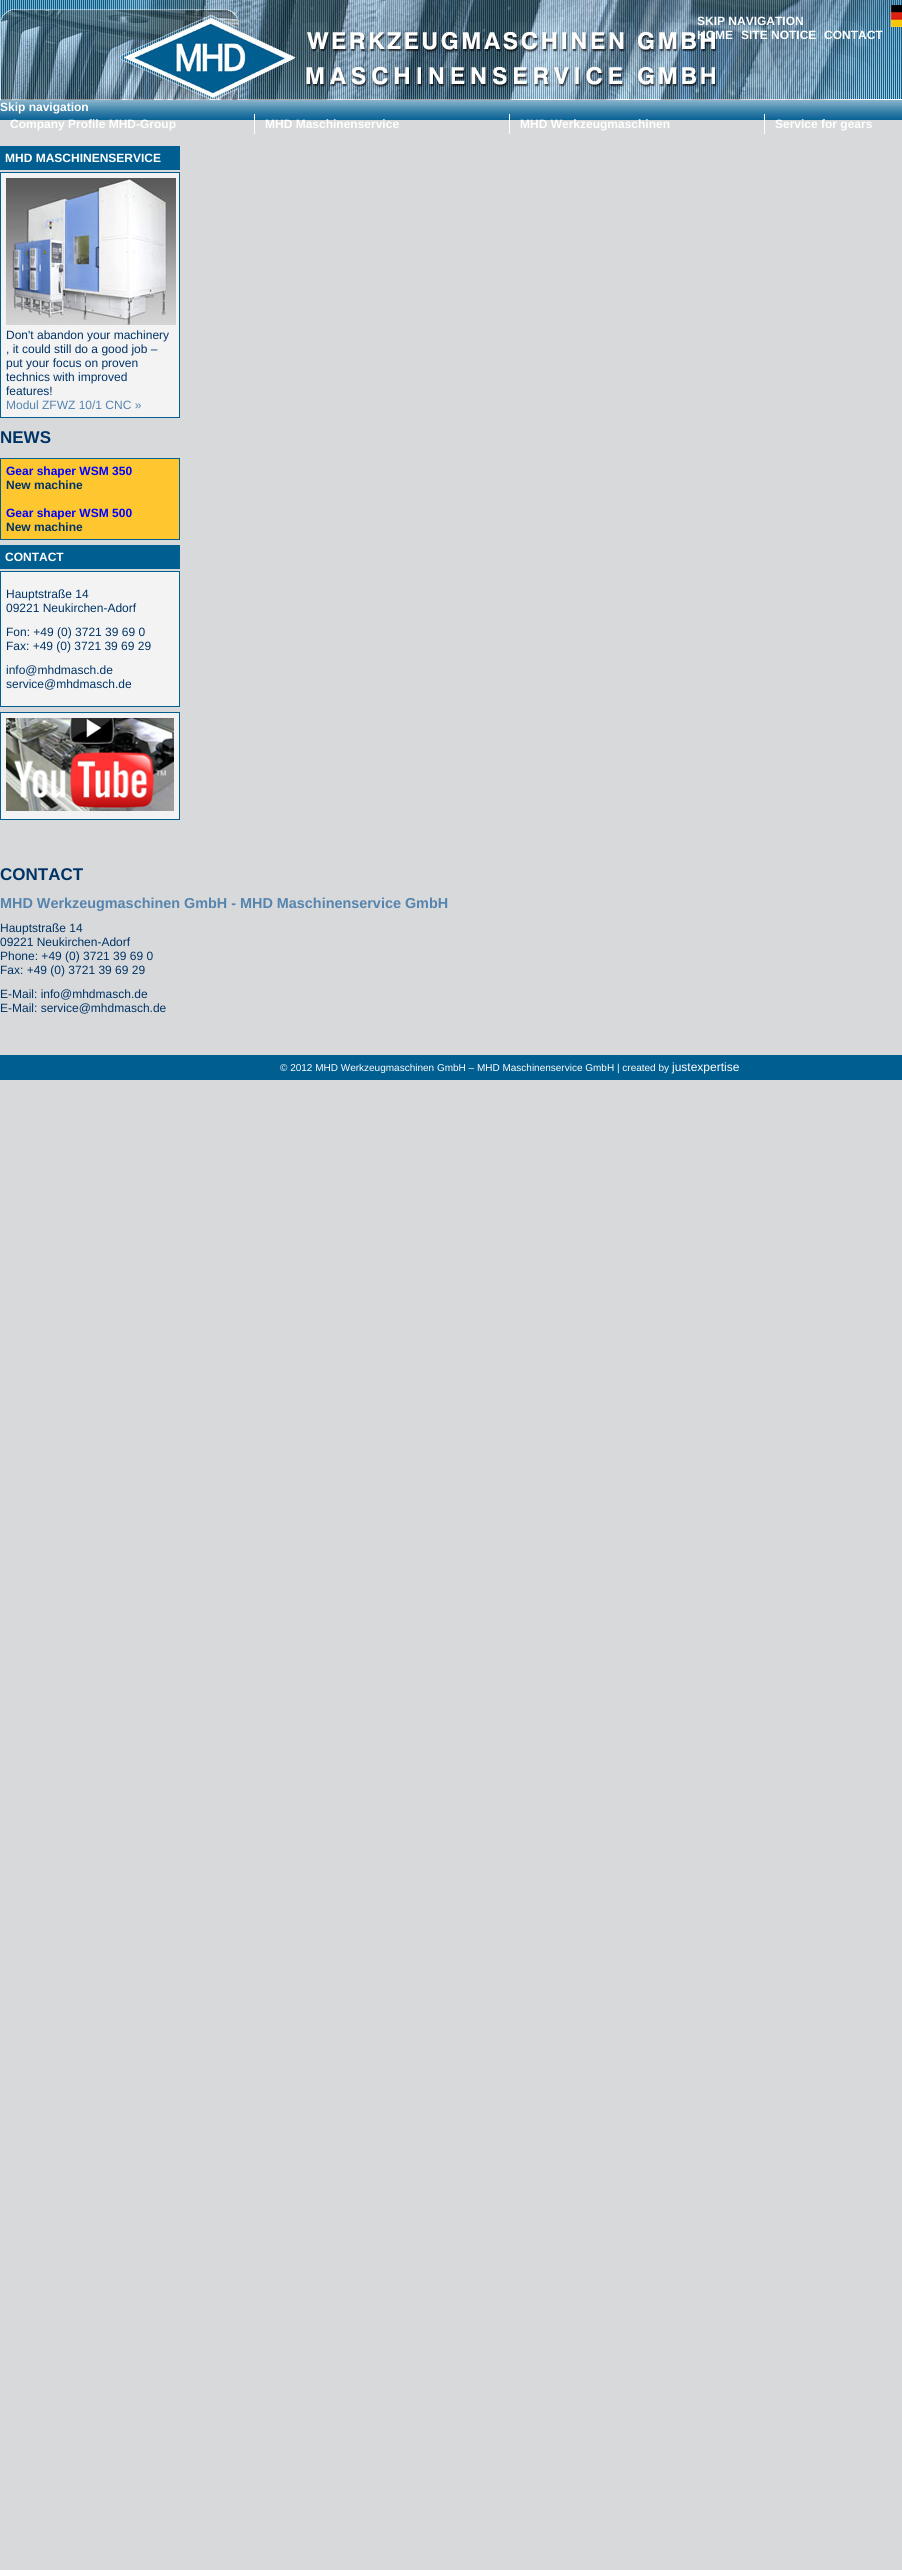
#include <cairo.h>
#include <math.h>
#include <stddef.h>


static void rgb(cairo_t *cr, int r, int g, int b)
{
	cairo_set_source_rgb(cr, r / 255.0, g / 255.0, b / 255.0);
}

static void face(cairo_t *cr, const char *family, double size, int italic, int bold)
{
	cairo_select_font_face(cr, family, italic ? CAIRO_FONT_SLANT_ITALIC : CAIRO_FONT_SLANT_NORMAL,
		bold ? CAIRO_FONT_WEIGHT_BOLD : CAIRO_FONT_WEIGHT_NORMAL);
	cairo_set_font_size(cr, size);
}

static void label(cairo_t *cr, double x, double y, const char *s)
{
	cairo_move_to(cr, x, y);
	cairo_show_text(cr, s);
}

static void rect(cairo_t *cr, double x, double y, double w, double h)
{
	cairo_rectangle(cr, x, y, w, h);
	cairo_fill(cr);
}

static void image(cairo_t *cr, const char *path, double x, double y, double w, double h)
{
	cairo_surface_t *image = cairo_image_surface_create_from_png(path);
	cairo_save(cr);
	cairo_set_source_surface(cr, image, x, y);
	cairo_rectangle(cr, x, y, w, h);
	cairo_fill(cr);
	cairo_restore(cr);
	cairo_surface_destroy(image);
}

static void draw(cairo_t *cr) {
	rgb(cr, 216, 217, 218);
	cairo_paint(cr);
	image(cr, "image0.png", 0, 0, 902, 100);
	face(cr, "Liberation Sans", 12, 0, 1);
	rgb(cr, 255, 255, 255);
	label(cr, 697, 25, "SKIP NAVIGATION");
	label(cr, 697, 39, "HOME");
	label(cr, 741, 39, "SITE NOTICE");
	label(cr, 824, 39, "CONTACT");
	image(cr, "image1.png", 891, 5, 11, 22);
	image(cr, "image2.png", 0, 100, 902, 20);
	label(cr, 0, 111, "Skip navigation");
	rect(cr, 254, 114, 1, 20);
	label(cr, 10, 128, "Company Profile MHD-Group");
	rect(cr, 509, 114, 1, 20);
	label(cr, 265, 128, "MHD Maschinenservice");
	rect(cr, 764, 114, 1, 20);
	label(cr, 520, 128, "MHD Werkzeugmaschinen");
	label(cr, 775, 128, "Service for gears");
	rgb(cr, 0, 94, 145);
	rect(cr, 0, 146, 180, 24);
	rgb(cr, 255, 255, 255);
	label(cr, 5, 162, "MHD MASCHINENSERVICE");
	rgb(cr, 243, 243, 243);
	cairo_rectangle(cr, 0.5, 172.5, 179, 245);
	cairo_fill_preserve(cr);
	rgb(cr, 0, 94, 145);
	cairo_set_line_width(cr, 1);
	cairo_stroke(cr);
	image(cr, "image3.png", 6, 178, 170, 147);
	face(cr, "Liberation Sans", 12, 0, 0);
	rgb(cr, 0, 51, 102);
	label(cr, 6, 339, "Don't abandon your machinery");
	label(cr, 6, 353, ", it could still do a good job –");
	label(cr, 6, 367, "put your focus on proven");
	label(cr, 6, 381, "technics with improved");
	label(cr, 6, 395, "features!");
	rgb(cr, 85, 132, 174);
	label(cr, 6, 409, "Modul ZFWZ 10/1 CNC »");
	face(cr, "Liberation Sans", 17, 0, 1);
	rgb(cr, 0, 51, 102);
	label(cr, 0, 443, "NEWS");
	rgb(cr, 255, 199, 47);
	cairo_rectangle(cr, 0.5, 458.5, 179, 81);
	cairo_fill_preserve(cr);
	rgb(cr, 0, 94, 145);
	cairo_stroke(cr);
	face(cr, "Liberation Sans", 12, 0, 1);
	rgb(cr, 0, 0, 255);
	label(cr, 6, 475, "Gear shaper WSM 350");
	rgb(cr, 0, 51, 102);
	label(cr, 6, 489, "New machine");
	rgb(cr, 0, 0, 255);
	label(cr, 6, 517, "Gear shaper WSM 500");
	rgb(cr, 0, 51, 102);
	label(cr, 6, 531, "New machine");
	rgb(cr, 0, 94, 145);
	rect(cr, 0, 545, 180, 24);
	rgb(cr, 255, 255, 255);
	label(cr, 5, 561, "CONTACT");
	rgb(cr, 243, 243, 243);
	cairo_rectangle(cr, 0.5, 571.5, 179, 135);
	cairo_fill_preserve(cr);
	rgb(cr, 0, 94, 145);
	cairo_stroke(cr);
	face(cr, "Liberation Sans", 12, 0, 0);
	rgb(cr, 0, 51, 102);
	label(cr, 6, 598, "Hauptstraße 14");
	label(cr, 6, 612, "09221 Neukirchen-Adorf");
	label(cr, 6, 636, "Fon: +49 (0) 3721 39 69 0");
	label(cr, 6, 650, "Fax: +49 (0) 3721 39 69 29");
	label(cr, 6, 674, "info@mhdmasch.de");
	label(cr, 6, 688, "service@mhdmasch.de");
	rgb(cr, 243, 243, 243);
	cairo_rectangle(cr, 0.5, 712.5, 179, 107);
	cairo_fill_preserve(cr);
	rgb(cr, 0, 94, 145);
	cairo_stroke(cr);
	image(cr, "image4.png", 6, 718, 168, 93);
	face(cr, "Liberation Sans", 17, 0, 1);
	rgb(cr, 0, 51, 102);
	label(cr, 0, 880, "CONTACT");
	face(cr, "Liberation Sans", 14.4, 0, 1);
	rgb(cr, 85, 132, 174);
	label(cr, 0, 908, "MHD Werkzeugmaschinen GmbH - MHD Maschinenservice GmbH");
	face(cr, "Liberation Sans", 12, 0, 0);
	rgb(cr, 0, 51, 102);
	label(cr, 0, 932, "Hauptstraße 14");
	label(cr, 0, 946, "09221 Neukirchen-Adorf");
	label(cr, 0, 960, "Phone: +49 (0) 3721 39 69 0");
	label(cr, 0, 974, "Fax: +49 (0) 3721 39 69 29");
	label(cr, 0, 998, "E-Mail: info@mhdmasch.de");
	label(cr, 0, 1012, "E-Mail: service@mhdmasch.de");
	rgb(cr, 0, 94, 145);
	rect(cr, 0, 1055, 902, 25);
	face(cr, "Liberation Sans", 10, 0, 0);
	rgb(cr, 255, 255, 255);
	label(cr, 280, 1071, "© 2012 MHD Werkzeugmaschinen GmbH – MHD Maschinenservice GmbH | created by");
	face(cr, "Liberation Sans", 12, 0, 0);
	label(cr, 672, 1071, "justexpertise");
}

int main(void) {
	cairo_surface_t *surface = cairo_image_surface_create(CAIRO_FORMAT_RGB24, 902, 2570);
	cairo_t *cr = cairo_create(surface);
	cairo_font_options_t *options = cairo_font_options_create();
	cairo_font_options_set_hint_metrics(options, CAIRO_HINT_METRICS_OFF);
	cairo_font_options_set_hint_style(options, CAIRO_HINT_STYLE_NONE);
	cairo_set_font_options(cr, options);
	cairo_set_miter_limit(cr, 4);
	draw(cr);
	cairo_surface_write_to_png(surface, "render.png");
	cairo_font_options_destroy(options);
	cairo_destroy(cr);
	cairo_surface_destroy(surface);
	return 0;
}
